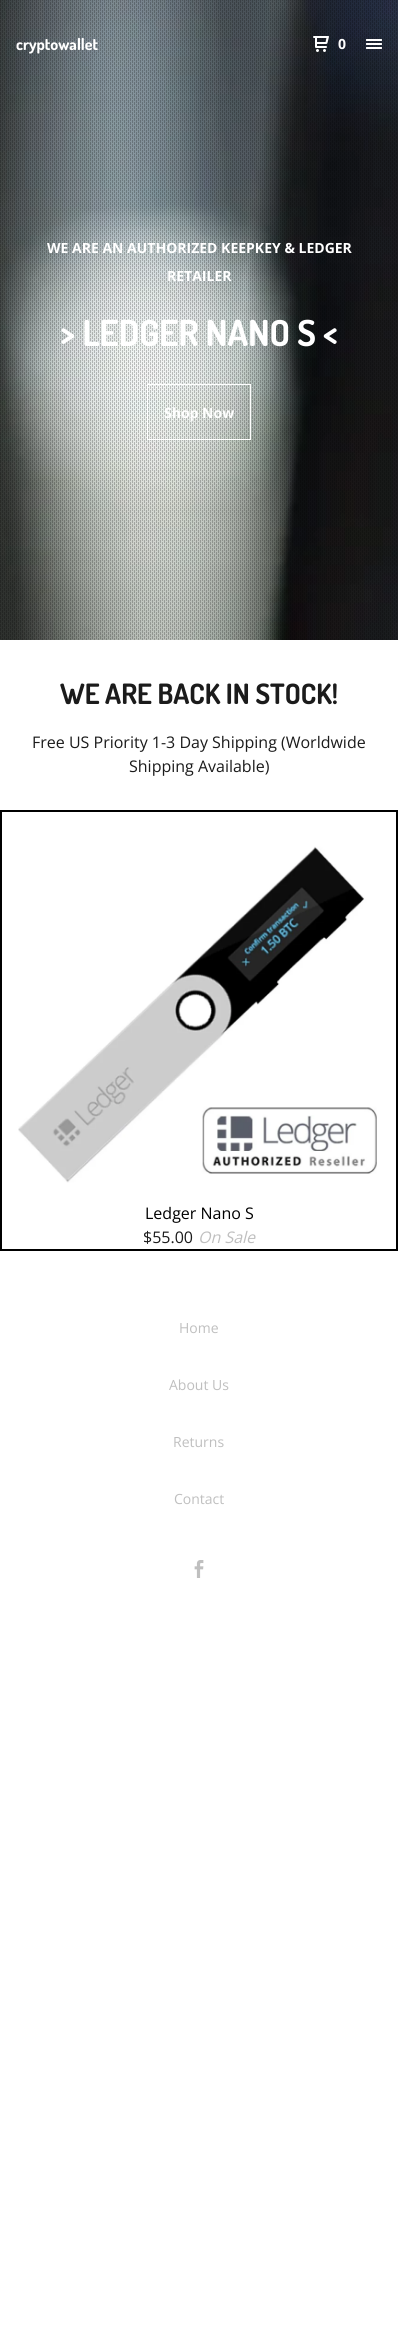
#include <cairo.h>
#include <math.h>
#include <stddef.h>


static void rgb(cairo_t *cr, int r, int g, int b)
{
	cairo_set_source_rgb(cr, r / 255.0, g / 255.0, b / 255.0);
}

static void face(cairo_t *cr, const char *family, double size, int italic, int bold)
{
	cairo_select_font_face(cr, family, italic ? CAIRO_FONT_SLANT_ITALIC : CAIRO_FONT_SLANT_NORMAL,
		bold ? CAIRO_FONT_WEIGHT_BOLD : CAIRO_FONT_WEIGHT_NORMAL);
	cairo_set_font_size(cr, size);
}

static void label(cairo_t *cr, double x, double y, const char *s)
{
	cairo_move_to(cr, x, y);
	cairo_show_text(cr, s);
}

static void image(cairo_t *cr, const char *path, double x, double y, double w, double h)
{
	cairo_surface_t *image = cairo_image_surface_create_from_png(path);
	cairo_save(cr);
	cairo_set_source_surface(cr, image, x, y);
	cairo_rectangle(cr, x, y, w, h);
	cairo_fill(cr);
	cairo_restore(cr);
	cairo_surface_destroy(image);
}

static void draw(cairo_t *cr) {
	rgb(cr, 255, 255, 255);
	cairo_paint(cr);
	image(cr, "image2.png", 0, 0, 398, 640);
	image(cr, "image3.png", 0, 0, 397, 640);
	face(cr, "Dosis", 16, 0, 1);
	rgb(cr, 255, 255, 255);
	label(cr, 16, 50, "cryptowallet");
	image(cr, "image0.png", 313, 36, 16, 16);
	face(cr, "Open Sans", 14, 0, 1);
	label(cr, 338, 49, "0");
	image(cr, "image1.png", 366, 39, 16, 10);
	label(cr, 47, 253, "WE ARE AN AUTHORIZED KEEPKEY & LEDGER");
	label(cr, 167, 281, "RETAILER");
	face(cr, "Dosis", 35.75, 0, 1);
	label(cr, 60, 346, "> LEDGER NANO S <");
	cairo_rectangle(cr, 147.5, 384.5, 103, 55);
	cairo_set_line_width(cr, 1);
	cairo_stroke(cr);
	face(cr, "Open Sans", 14, 0, 1);
	label(cr, 164, 418, "Shop Now");
	face(cr, "Dosis", 28, 0, 1);
	rgb(cr, 27, 27, 27);
	label(cr, 60, 704, "WE ARE BACK IN STOCK!");
	face(cr, "Open Sans", 16, 0, 0);
	label(cr, 32, 748, "Free US Priority 1-3 Day Shipping (Worldwide");
	label(cr, 129, 772, "Shipping Available)");
	cairo_rectangle(cr, 1, 811, 396, 439);
	rgb(cr, 0, 0, 0);
	cairo_set_line_width(cr, 2);
	cairo_stroke(cr);
	image(cr, "image4.png", 18, 846, 359, 337);
	label(cr, 145, 1219, "Ledger Nano S");
	rgb(cr, 27, 27, 27);
	label(cr, 143, 1243, "$55.00");
	face(cr, "Open Sans", 16, 1, 0);
	rgb(cr, 191, 191, 191);
	label(cr, 198, 1243, "On Sale");
	face(cr, "Open Sans", 14, 0, 0);
	label(cr, 179, 1333, "Home");
	label(cr, 169, 1390, "About Us");
	label(cr, 173, 1447, "Returns");
	label(cr, 174, 1504, "Contact");
	image(cr, "image5.png", 194, 1560, 10, 18);
}

int main(void) {
	cairo_surface_t *surface = cairo_image_surface_create(CAIRO_FORMAT_RGB24, 398, 2347);
	cairo_t *cr = cairo_create(surface);
	cairo_font_options_t *options = cairo_font_options_create();
	cairo_font_options_set_hint_metrics(options, CAIRO_HINT_METRICS_OFF);
	cairo_font_options_set_hint_style(options, CAIRO_HINT_STYLE_NONE);
	cairo_set_font_options(cr, options);
	cairo_set_miter_limit(cr, 4);
	draw(cr);
	cairo_surface_write_to_png(surface, "render.png");
	cairo_font_options_destroy(options);
	cairo_destroy(cr);
	cairo_surface_destroy(surface);
	return 0;
}
